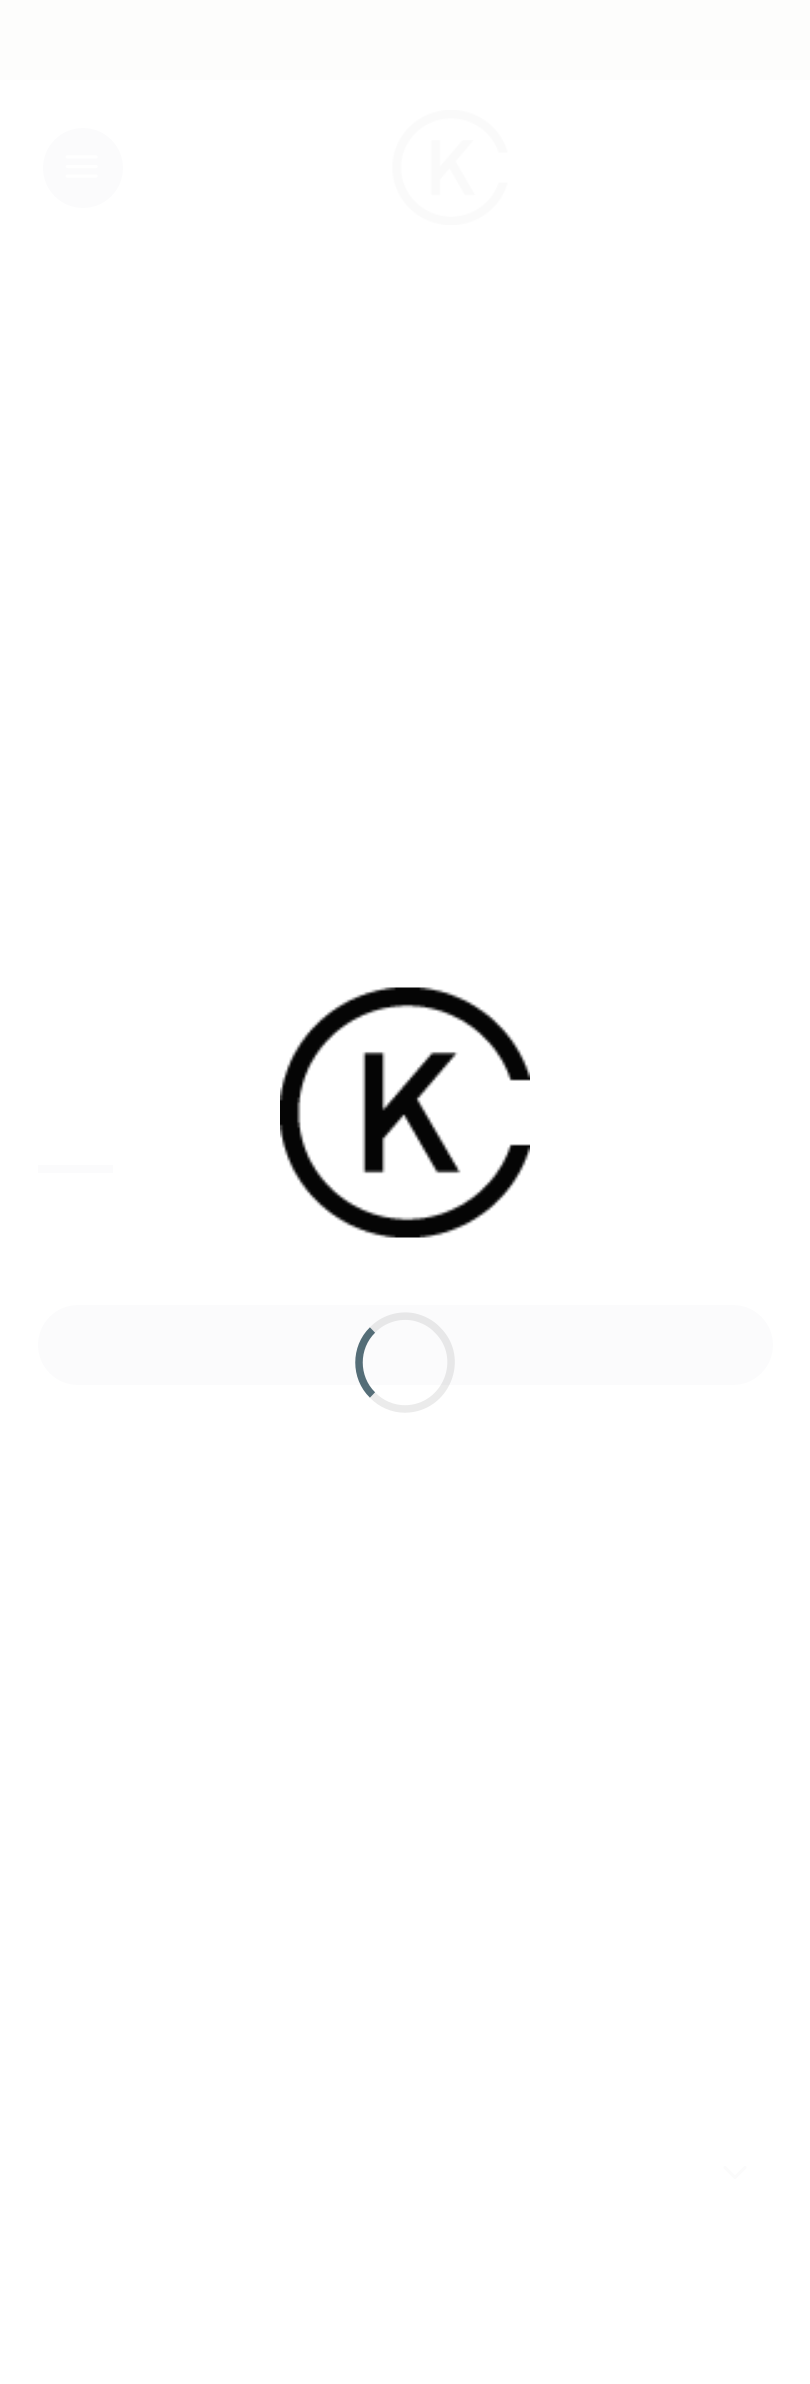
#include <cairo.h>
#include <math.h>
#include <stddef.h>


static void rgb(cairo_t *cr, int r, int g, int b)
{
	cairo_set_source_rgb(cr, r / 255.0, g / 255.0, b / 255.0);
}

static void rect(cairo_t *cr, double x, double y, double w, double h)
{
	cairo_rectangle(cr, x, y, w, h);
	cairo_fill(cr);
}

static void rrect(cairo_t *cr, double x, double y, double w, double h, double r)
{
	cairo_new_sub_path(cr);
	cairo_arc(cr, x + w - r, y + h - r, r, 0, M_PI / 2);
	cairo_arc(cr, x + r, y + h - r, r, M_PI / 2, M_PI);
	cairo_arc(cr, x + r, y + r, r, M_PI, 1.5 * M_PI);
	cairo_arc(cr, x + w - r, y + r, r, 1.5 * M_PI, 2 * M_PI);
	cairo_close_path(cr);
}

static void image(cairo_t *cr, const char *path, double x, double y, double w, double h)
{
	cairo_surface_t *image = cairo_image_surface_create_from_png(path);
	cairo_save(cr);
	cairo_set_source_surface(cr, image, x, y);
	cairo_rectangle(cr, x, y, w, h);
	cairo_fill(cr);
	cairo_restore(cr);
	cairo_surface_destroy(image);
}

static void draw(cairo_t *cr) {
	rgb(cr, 255, 255, 255);
	cairo_paint(cr);
	rgb(cr, 253, 253, 252);
	rect(cr, 0, 0, 810, 80);
	rgb(cr, 251, 251, 252);
	cairo_arc(cr, 83, 168, 40, 0, 2 * M_PI);
	cairo_fill(cr);
	image(cr, "image0.png", 65, 155, 33, 23);
	image(cr, "image1.png", 392, 110, 116, 115);
	image(cr, "image2.png", 280, 987, 250, 251);
	rrect(cr, 38, 1305, 735, 80, 40);
	cairo_fill(cr);
	cairo_new_path(cr);
	cairo_move_to(cr, 372.5, 1330);
	cairo_curve_to(cr, 383, 1319, 399, 1314, 414, 1317);
	cairo_curve_to(cr, 423, 1319, 431.5, 1323.5, 437.5, 1330);
	cairo_curve_to(cr, 466.5, 1358.5, 446, 1408.5, 405, 1409);
	cairo_curve_to(cr, 393, 1409, 381, 1404, 372.5, 1395);
	cairo_set_source_rgba(cr, 0, 0, 0, 0.08);
	cairo_set_line_width(cr, 7.5);
	cairo_stroke(cr);
	cairo_new_path(cr);
	cairo_move_to(cr, 372.5, 1395);
	cairo_curve_to(cr, 354.5, 1377.5, 354.5, 1347.5, 372.5, 1330);
	cairo_set_source_rgba(cr, 0.149, 0.275, 0.325, 0.78);
	cairo_stroke(cr);
	rgb(cr, 251, 251, 252);
	rect(cr, 38, 1165, 75, 8);
	cairo_new_path(cr);
	cairo_move_to(cr, 725, 2167.5);
	cairo_line_to(cr, 735, 2177.5);
	cairo_line_to(cr, 745, 2167.5);
	rgb(cr, 251, 251, 251);
	cairo_set_line_width(cr, 3.3);
	cairo_set_line_cap(cr, CAIRO_LINE_CAP_ROUND);
	cairo_set_line_join(cr, CAIRO_LINE_JOIN_ROUND);
	cairo_stroke(cr);
}

int main(void) {
	cairo_surface_t *surface = cairo_image_surface_create(CAIRO_FORMAT_RGB24, 810, 2384);
	cairo_t *cr = cairo_create(surface);
	cairo_font_options_t *options = cairo_font_options_create();
	cairo_font_options_set_hint_metrics(options, CAIRO_HINT_METRICS_OFF);
	cairo_font_options_set_hint_style(options, CAIRO_HINT_STYLE_NONE);
	cairo_set_font_options(cr, options);
	cairo_set_miter_limit(cr, 4);
	draw(cr);
	cairo_surface_write_to_png(surface, "render.png");
	cairo_font_options_destroy(options);
	cairo_destroy(cr);
	cairo_surface_destroy(surface);
	return 0;
}
